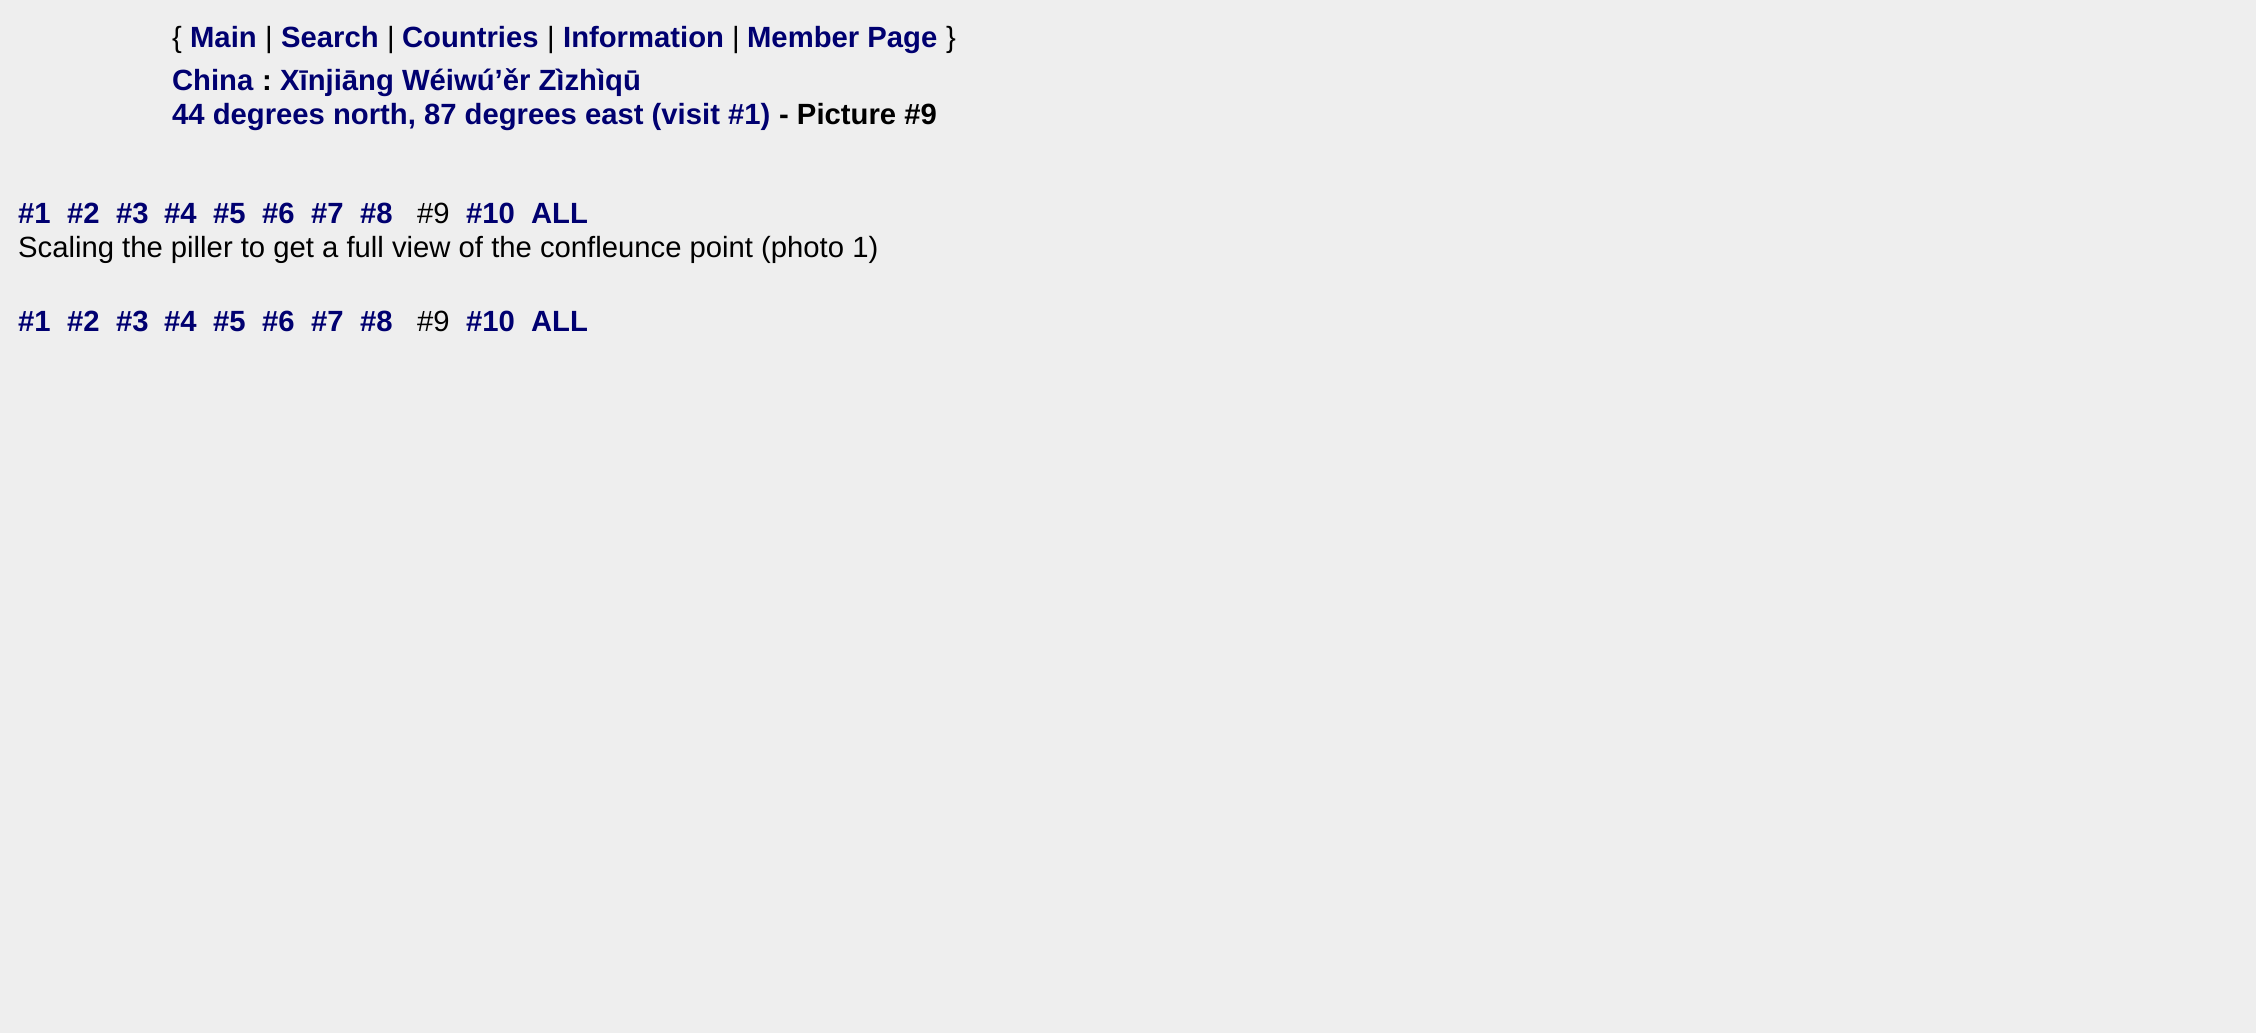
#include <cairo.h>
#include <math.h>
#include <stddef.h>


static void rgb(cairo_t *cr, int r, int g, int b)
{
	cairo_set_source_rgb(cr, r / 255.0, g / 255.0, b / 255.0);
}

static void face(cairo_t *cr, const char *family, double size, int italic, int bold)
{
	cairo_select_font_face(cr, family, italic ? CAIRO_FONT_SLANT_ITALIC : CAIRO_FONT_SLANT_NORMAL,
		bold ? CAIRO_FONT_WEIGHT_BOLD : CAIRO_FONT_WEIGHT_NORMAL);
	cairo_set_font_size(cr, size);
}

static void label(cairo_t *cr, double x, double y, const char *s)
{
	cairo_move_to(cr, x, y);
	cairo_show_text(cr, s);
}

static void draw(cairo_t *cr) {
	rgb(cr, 238, 238, 238);
	cairo_paint(cr);
	face(cr, "Liberation Sans", 29.25, 0, 0);
	rgb(cr, 0, 0, 0);
	label(cr, 172, 47, "{");
	face(cr, "Liberation Sans", 29.25, 0, 1);
	rgb(cr, 0, 0, 112);
	label(cr, 190, 47, "Main");
	face(cr, "Liberation Sans", 29.25, 0, 0);
	rgb(cr, 0, 0, 0);
	label(cr, 265, 47, "|");
	face(cr, "Liberation Sans", 29.25, 0, 1);
	rgb(cr, 0, 0, 112);
	label(cr, 281, 47, "Search");
	face(cr, "Liberation Sans", 29.25, 0, 0);
	rgb(cr, 0, 0, 0);
	label(cr, 387, 47, "|");
	face(cr, "Liberation Sans", 29.25, 0, 1);
	rgb(cr, 0, 0, 112);
	label(cr, 402, 47, "Countries");
	face(cr, "Liberation Sans", 29.25, 0, 0);
	rgb(cr, 0, 0, 0);
	label(cr, 547, 47, "|");
	face(cr, "Liberation Sans", 29.25, 0, 1);
	rgb(cr, 0, 0, 112);
	label(cr, 563, 47, "Information");
	face(cr, "Liberation Sans", 29.25, 0, 0);
	rgb(cr, 0, 0, 0);
	label(cr, 732, 47, "|");
	face(cr, "Liberation Sans", 29.25, 0, 1);
	rgb(cr, 0, 0, 112);
	label(cr, 747, 47, "Member Page");
	face(cr, "Liberation Sans", 29.25, 0, 0);
	rgb(cr, 0, 0, 0);
	label(cr, 946, 47, "}");
	face(cr, "Liberation Sans", 29.25, 0, 1);
	rgb(cr, 0, 0, 112);
	label(cr, 172, 90, "China");
	rgb(cr, 0, 0, 0);
	label(cr, 262, 90, ":");
	rgb(cr, 0, 0, 112);
	label(cr, 280, 90, "Xīnjiāng Wéiwú’ěr Zìzhìqū");
	label(cr, 172, 124, "44 degrees north, 87 degrees east (visit #1)");
	rgb(cr, 0, 0, 0);
	label(cr, 779, 124, "- Picture #9");
	rgb(cr, 0, 0, 112);
	label(cr, 18, 223, "#1");
	label(cr, 67, 223, "#2");
	label(cr, 116, 223, "#3");
	label(cr, 164, 223, "#4");
	label(cr, 213, 223, "#5");
	label(cr, 262, 223, "#6");
	label(cr, 311, 223, "#7");
	label(cr, 360, 223, "#8");
	face(cr, "Liberation Sans", 29.25, 0, 0);
	rgb(cr, 0, 0, 0);
	label(cr, 417, 223, "#9");
	face(cr, "Liberation Sans", 29.25, 0, 1);
	rgb(cr, 0, 0, 112);
	label(cr, 466, 223, "#10");
	label(cr, 531, 223, "ALL");
	face(cr, "Liberation Sans", 29.25, 0, 0);
	rgb(cr, 0, 0, 0);
	label(cr, 18, 257, "Scaling the piller to get a full view of the confleunce point (photo 1)");
	face(cr, "Liberation Sans", 29.25, 0, 1);
	rgb(cr, 0, 0, 112);
	label(cr, 18, 331, "#1");
	label(cr, 67, 331, "#2");
	label(cr, 116, 331, "#3");
	label(cr, 164, 331, "#4");
	label(cr, 213, 331, "#5");
	label(cr, 262, 331, "#6");
	label(cr, 311, 331, "#7");
	label(cr, 360, 331, "#8");
	face(cr, "Liberation Sans", 29.25, 0, 0);
	rgb(cr, 0, 0, 0);
	label(cr, 417, 331, "#9");
	face(cr, "Liberation Sans", 29.25, 0, 1);
	rgb(cr, 0, 0, 112);
	label(cr, 466, 331, "#10");
	label(cr, 531, 331, "ALL");
}

int main(void) {
	cairo_surface_t *surface = cairo_image_surface_create(CAIRO_FORMAT_RGB24, 2256, 1033);
	cairo_t *cr = cairo_create(surface);
	cairo_font_options_t *options = cairo_font_options_create();
	cairo_font_options_set_hint_metrics(options, CAIRO_HINT_METRICS_OFF);
	cairo_font_options_set_hint_style(options, CAIRO_HINT_STYLE_NONE);
	cairo_set_font_options(cr, options);
	cairo_set_miter_limit(cr, 4);
	draw(cr);
	cairo_surface_write_to_png(surface, "render.png");
	cairo_font_options_destroy(options);
	cairo_destroy(cr);
	cairo_surface_destroy(surface);
	return 0;
}
